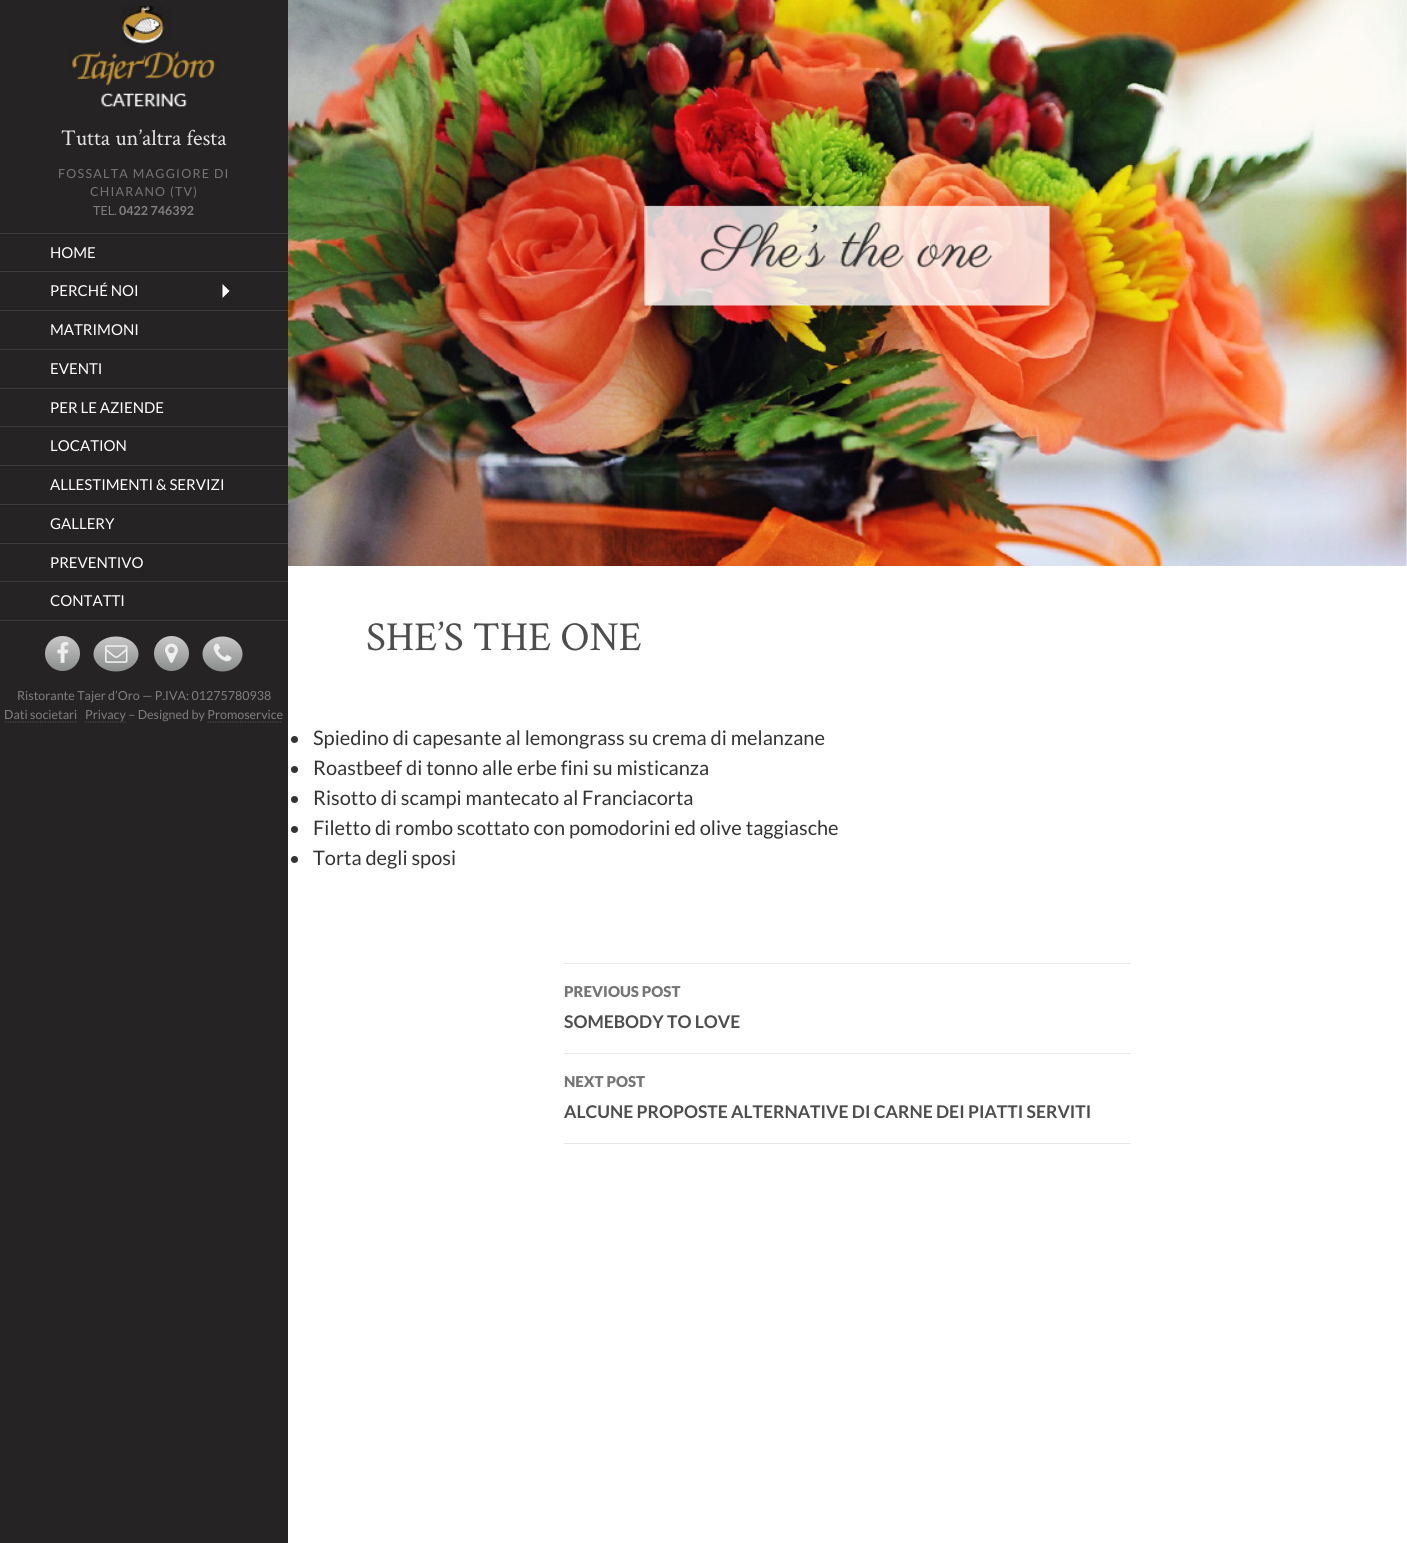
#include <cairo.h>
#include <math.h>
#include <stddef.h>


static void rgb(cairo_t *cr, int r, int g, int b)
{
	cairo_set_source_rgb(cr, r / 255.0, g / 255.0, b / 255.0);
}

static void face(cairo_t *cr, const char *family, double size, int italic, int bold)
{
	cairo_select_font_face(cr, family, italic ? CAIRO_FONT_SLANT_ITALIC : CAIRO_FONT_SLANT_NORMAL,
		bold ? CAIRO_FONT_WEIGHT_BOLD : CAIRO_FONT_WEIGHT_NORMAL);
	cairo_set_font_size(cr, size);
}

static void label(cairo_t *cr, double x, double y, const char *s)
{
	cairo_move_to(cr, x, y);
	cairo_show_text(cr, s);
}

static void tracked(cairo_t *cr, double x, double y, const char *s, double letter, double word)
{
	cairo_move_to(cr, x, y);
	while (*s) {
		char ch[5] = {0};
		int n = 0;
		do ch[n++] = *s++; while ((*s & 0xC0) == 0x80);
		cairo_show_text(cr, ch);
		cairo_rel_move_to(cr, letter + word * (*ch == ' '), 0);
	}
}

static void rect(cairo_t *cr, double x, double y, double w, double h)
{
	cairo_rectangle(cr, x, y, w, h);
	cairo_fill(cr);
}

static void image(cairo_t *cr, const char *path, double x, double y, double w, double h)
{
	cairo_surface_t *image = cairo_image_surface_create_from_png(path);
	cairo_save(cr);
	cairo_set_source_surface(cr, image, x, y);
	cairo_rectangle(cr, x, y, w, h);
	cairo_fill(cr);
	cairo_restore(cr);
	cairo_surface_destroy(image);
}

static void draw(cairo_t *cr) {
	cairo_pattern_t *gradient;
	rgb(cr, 255, 255, 255);
	cairo_paint(cr);
	image(cr, "image0.png", 0, 0, 288, 107);
	rgb(cr, 37, 35, 36);
	rect(cr, 0, 107, 288, 1436);
	face(cr, "Crimson Text", 22.5, 0, 0);
	rgb(cr, 227, 227, 227);
	label(cr, 61, 145, "Tutta un’altra festa");
	face(cr, "Lato", 12.5, 0, 0);
	rgb(cr, 118, 118, 118);
	tracked(cr, 58, 178, "FOSSALTA MAGGIORE DI", 1.25, 0);
	tracked(cr, 90, 196, "CHIARANO (TV)", 1.25, 0);
	rgb(cr, 128, 128, 128);
	label(cr, 93, 215, "TEL.");
	face(cr, "Lato", 12.5, 0, 1);
	label(cr, 119, 215, "0422 746392");
	rgb(cr, 62, 58, 60);
	rect(cr, 0, 233, 288, 1);
	rect(cr, 0, 271, 288, 1);
	face(cr, "Lato", 15, 0, 0);
	rgb(cr, 255, 255, 255);
	label(cr, 50, 258, "HOME");
	rgb(cr, 62, 58, 60);
	rect(cr, 0, 310, 288, 1);
	rgb(cr, 255, 255, 255);
	label(cr, 50, 296, "PERCHÉ NOI");
	cairo_new_path(cr);
	cairo_move_to(cr, 222.5, 298);
	cairo_line_to(cr, 229.5, 291);
	cairo_line_to(cr, 222.5, 284);
	cairo_close_path(cr);
	cairo_fill(cr);
	rgb(cr, 62, 58, 60);
	rect(cr, 0, 349, 288, 1);
	rgb(cr, 255, 255, 255);
	label(cr, 50, 335, "MATRIMONI");
	rgb(cr, 62, 58, 60);
	rect(cr, 0, 388, 288, 1);
	rgb(cr, 255, 255, 255);
	label(cr, 50, 374, "EVENTI");
	rgb(cr, 62, 58, 60);
	rect(cr, 0, 426, 288, 1);
	rgb(cr, 255, 255, 255);
	label(cr, 50, 413, "PER LE AZIENDE");
	rgb(cr, 62, 58, 60);
	rect(cr, 0, 465, 288, 1);
	rgb(cr, 255, 255, 255);
	label(cr, 50, 451, "LOCATION");
	rgb(cr, 62, 58, 60);
	rect(cr, 0, 504, 288, 1);
	rgb(cr, 255, 255, 255);
	label(cr, 50, 490, "ALLESTIMENTI & SERVIZI");
	rgb(cr, 62, 58, 60);
	rect(cr, 0, 543, 288, 1);
	rgb(cr, 255, 255, 255);
	label(cr, 50, 529, "GALLERY");
	rgb(cr, 62, 58, 60);
	rect(cr, 0, 581, 288, 1);
	rgb(cr, 255, 255, 255);
	label(cr, 50, 568, "PREVENTIVO");
	rgb(cr, 62, 58, 60);
	rect(cr, 0, 620, 288, 1);
	rgb(cr, 255, 255, 255);
	label(cr, 50, 606, "CONTATTI");
	gradient = cairo_pattern_create_linear(63, 636, 63, 671);
	cairo_pattern_add_color_stop_rgba(gradient, 0, 0.788, 0.788, 0.788, 1);
	cairo_pattern_add_color_stop_rgba(gradient, 1, 0.545, 0.549, 0.549, 1);
	cairo_set_source(cr, gradient);
	cairo_pattern_destroy(gradient);
	cairo_new_path(cr);
	cairo_arc(cr, 62.5, 653.5, 17.5, 0, 2 * M_PI);
	cairo_fill(cr);
	image(cr, "image1.png", 57, 642, 12, 21);
	gradient = cairo_pattern_create_linear(116, 636, 116, 671);
	cairo_pattern_add_color_stop_rgba(gradient, 0, 0.788, 0.788, 0.788, 1);
	cairo_pattern_add_color_stop_rgba(gradient, 1, 0.545, 0.549, 0.549, 1);
	cairo_set_source(cr, gradient);
	cairo_pattern_destroy(gradient);
	cairo_new_path(cr);
	cairo_move_to(cr, 116, 636.5);
	cairo_curve_to(cr, 128.5, 636.5, 138.5, 644.5, 138.5, 654);
	cairo_curve_to(cr, 138.5, 663.5, 128.5, 671.5, 116, 671.5);
	cairo_curve_to(cr, 103.5, 671.5, 93.5, 663.5, 93.5, 654);
	cairo_curve_to(cr, 93.5, 644.5, 103.5, 636.5, 116, 636.5);
	cairo_close_path(cr);
	cairo_fill(cr);
	image(cr, "image2.png", 105, 645, 23, 18);
	gradient = cairo_pattern_create_linear(171, 636, 171, 671);
	cairo_pattern_add_color_stop_rgba(gradient, 0, 0.788, 0.788, 0.788, 1);
	cairo_pattern_add_color_stop_rgba(gradient, 1, 0.545, 0.549, 0.549, 1);
	cairo_set_source(cr, gradient);
	cairo_pattern_destroy(gradient);
	cairo_arc(cr, 171.5, 653.5, 17.5, 0, 2 * M_PI);
	cairo_fill(cr);
	image(cr, "image3.png", 165, 643, 13, 20);
	gradient = cairo_pattern_create_linear(223, 636, 223, 671);
	cairo_pattern_add_color_stop_rgba(gradient, 0, 0.788, 0.788, 0.788, 1);
	cairo_pattern_add_color_stop_rgba(gradient, 1, 0.545, 0.549, 0.549, 1);
	cairo_set_source(cr, gradient);
	cairo_pattern_destroy(gradient);
	cairo_new_path(cr);
	cairo_move_to(cr, 222.5, 636.5);
	cairo_curve_to(cr, 233.5, 636.5, 242.5, 644.5, 242.5, 654);
	cairo_curve_to(cr, 242.5, 663.5, 233.5, 671.5, 222.5, 671.5);
	cairo_curve_to(cr, 211.5, 671.5, 202.5, 663.5, 202.5, 654);
	cairo_curve_to(cr, 202.5, 644.5, 211.5, 636.5, 222.5, 636.5);
	cairo_close_path(cr);
	cairo_fill(cr);
	image(cr, "image4.png", 213, 643, 19, 19);
	face(cr, "Lato", 12.5, 0, 0);
	rgb(cr, 128, 128, 128);
	label(cr, 17, 700, "Ristorante Tajer d’Oro — P.IVA: 01275780938");
	label(cr, 4, 719, "Dati societari");
	cairo_new_path(cr);
	cairo_move_to(cr, 5, 722);
	cairo_line_to(cr, 77.5, 722);
	rgb(cr, 77, 77, 77);
	cairo_set_line_width(cr, 1.2);
	cairo_set_dash(cr, (double[]){1.25, 1.25}, 2, 0);
	cairo_stroke(cr);
	cairo_new_path(cr);
	cairo_move_to(cr, 85, 722);
	cairo_line_to(cr, 126, 722);
	cairo_stroke(cr);
	rgb(cr, 128, 128, 128);
	label(cr, 85, 719, "Privacy – Designed by Promoservice");
	cairo_new_path(cr);
	cairo_move_to(cr, 207.5, 722);
	cairo_line_to(cr, 282.5, 722);
	rgb(cr, 77, 77, 77);
	cairo_stroke(cr);
	image(cr, "image5.png", 288, 0, 1119, 566);
	face(cr, "Crimson Text", 41.25, 0, 0);
	label(cr, 366, 650, "SHE’S THE ONE");
	rgb(cr, 51, 51, 51);
	cairo_new_path(cr);
	cairo_arc(cr, 294.5, 739.5, 3.5, 0, 2 * M_PI);
	cairo_fill(cr);
	face(cr, "Lato", 20, 0, 0);
	label(cr, 313, 745, "Spiedino di capesante al lemongrass su crema di melanzane");
	cairo_new_path(cr);
	cairo_arc(cr, 294.5, 769.5, 3.5, 0, 2 * M_PI);
	cairo_fill(cr);
	label(cr, 313, 775, "Roastbeef di tonno alle erbe fini su misticanza");
	cairo_new_path(cr);
	cairo_arc(cr, 294.5, 799.5, 3.5, 0, 2 * M_PI);
	cairo_fill(cr);
	label(cr, 313, 805, "Risotto di scampi mantecato al Franciacorta");
	cairo_new_path(cr);
	cairo_arc(cr, 294.5, 829.5, 3.5, 0, 2 * M_PI);
	cairo_fill(cr);
	label(cr, 313, 835, "Filetto di rombo scottato con pomodorini ed olive taggiasche");
	cairo_new_path(cr);
	cairo_arc(cr, 294.5, 859.5, 3.5, 0, 2 * M_PI);
	cairo_fill(cr);
	label(cr, 313, 865, "Torta degli sposi");
	rgb(cr, 230, 230, 230);
	rect(cr, 564, 963, 567, 1);
	rect(cr, 564, 1053, 567, 1);
	face(cr, "Lato Black", 15, 0, 0);
	rgb(cr, 118, 118, 118);
	label(cr, 564, 997, "PREVIOUS POST");
	face(cr, "Lato", 17.5, 0, 1);
	rgb(cr, 77, 77, 77);
	label(cr, 564, 1028, "SOMEBODY TO LOVE");
	rgb(cr, 230, 230, 230);
	rect(cr, 564, 1143, 567, 1);
	face(cr, "Lato Black", 15, 0, 0);
	rgb(cr, 118, 118, 118);
	label(cr, 564, 1087, "NEXT POST");
	face(cr, "Lato", 17.5, 0, 1);
	rgb(cr, 77, 77, 77);
	label(cr, 564, 1118, "ALCUNE PROPOSTE ALTERNATIVE DI CARNE DEI PIATTI SERVITI");
}

int main(void) {
	cairo_surface_t *surface = cairo_image_surface_create(CAIRO_FORMAT_RGB24, 1407, 1543);
	cairo_t *cr = cairo_create(surface);
	cairo_font_options_t *options = cairo_font_options_create();
	cairo_font_options_set_hint_metrics(options, CAIRO_HINT_METRICS_OFF);
	cairo_font_options_set_hint_style(options, CAIRO_HINT_STYLE_NONE);
	cairo_set_font_options(cr, options);
	cairo_set_miter_limit(cr, 4);
	draw(cr);
	cairo_surface_write_to_png(surface, "render.png");
	cairo_font_options_destroy(options);
	cairo_destroy(cr);
	cairo_surface_destroy(surface);
	return 0;
}
